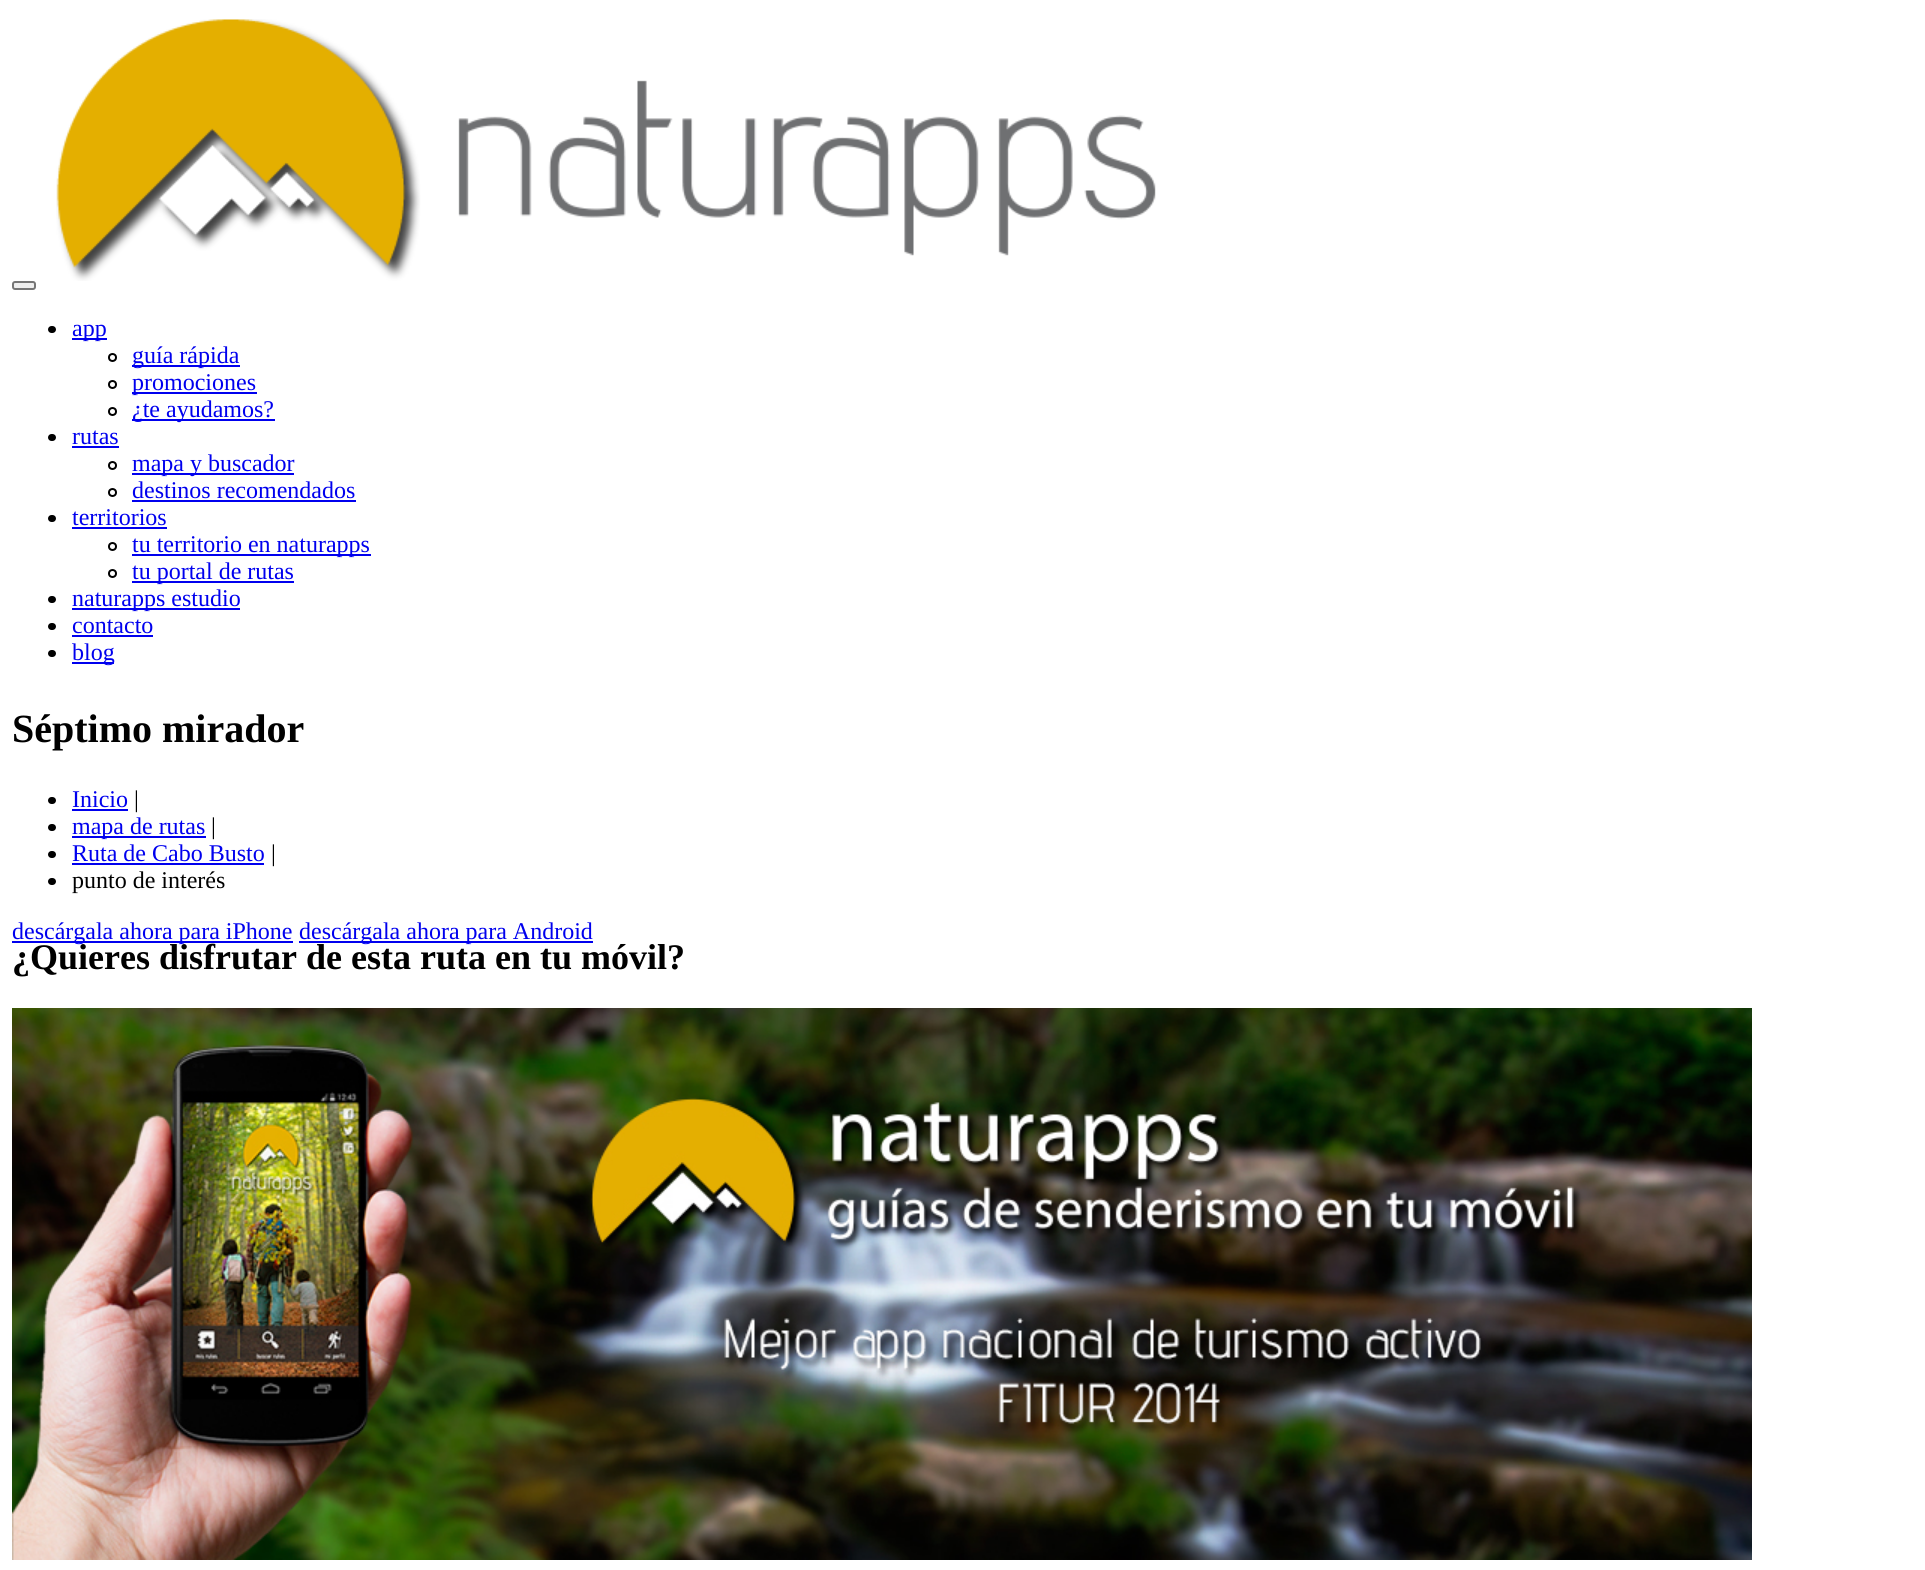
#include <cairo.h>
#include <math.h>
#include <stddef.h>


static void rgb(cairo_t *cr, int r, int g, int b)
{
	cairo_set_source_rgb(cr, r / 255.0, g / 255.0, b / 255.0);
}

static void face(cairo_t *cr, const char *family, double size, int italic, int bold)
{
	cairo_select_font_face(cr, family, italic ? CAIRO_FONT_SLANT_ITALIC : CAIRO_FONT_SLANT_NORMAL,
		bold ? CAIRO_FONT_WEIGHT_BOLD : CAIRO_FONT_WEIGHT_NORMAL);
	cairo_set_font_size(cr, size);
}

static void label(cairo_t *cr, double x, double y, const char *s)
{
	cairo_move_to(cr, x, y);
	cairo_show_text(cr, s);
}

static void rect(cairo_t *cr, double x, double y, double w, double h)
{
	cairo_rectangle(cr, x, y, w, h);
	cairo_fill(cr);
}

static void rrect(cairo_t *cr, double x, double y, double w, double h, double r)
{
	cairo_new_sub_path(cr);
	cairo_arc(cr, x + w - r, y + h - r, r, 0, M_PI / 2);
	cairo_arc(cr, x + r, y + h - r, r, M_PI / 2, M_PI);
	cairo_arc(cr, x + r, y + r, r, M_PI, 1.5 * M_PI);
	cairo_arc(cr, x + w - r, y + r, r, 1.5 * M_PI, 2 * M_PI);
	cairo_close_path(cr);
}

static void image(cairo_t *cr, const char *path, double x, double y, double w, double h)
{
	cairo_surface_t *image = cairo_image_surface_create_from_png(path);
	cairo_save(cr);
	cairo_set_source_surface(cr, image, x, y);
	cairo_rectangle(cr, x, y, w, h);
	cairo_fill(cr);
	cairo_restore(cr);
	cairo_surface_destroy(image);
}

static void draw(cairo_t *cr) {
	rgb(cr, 255, 255, 255);
	cairo_paint(cr);
	image(cr, "image0.png", 56, 19, 1100, 262);
	rgb(cr, 239, 239, 239);
	rrect(cr, 13, 282, 22, 7, 2);
	cairo_fill_preserve(cr);
	rgb(cr, 118, 118, 118);
	cairo_stroke(cr);
	rgb(cr, 0, 0, 0);
	rrect(cr, 48, 326, 8, 7, 3.5);
	cairo_fill(cr);
	rgb(cr, 0, 0, 238);
	rect(cr, 72, 338, 35, 2);
	face(cr, "Liberation Serif", 24, 0, 0);
	label(cr, 72, 336, "app");
	cairo_new_path(cr);
	cairo_arc(cr, 112.5, 357.5, 3.5, 0, 2 * M_PI);
	rgb(cr, 0, 0, 0);
	cairo_stroke(cr);
	rgb(cr, 0, 0, 238);
	rect(cr, 132, 365, 108, 2);
	label(cr, 132, 363, "guía rápida");
	cairo_new_path(cr);
	cairo_arc(cr, 112.5, 384.5, 3.5, 0, 2 * M_PI);
	rgb(cr, 0, 0, 0);
	cairo_stroke(cr);
	rgb(cr, 0, 0, 238);
	rect(cr, 132, 392, 125, 2);
	label(cr, 132, 390, "promociones");
	cairo_new_path(cr);
	cairo_arc(cr, 112.5, 411.5, 3.5, 0, 2 * M_PI);
	rgb(cr, 0, 0, 0);
	cairo_stroke(cr);
	rgb(cr, 0, 0, 238);
	rect(cr, 132, 419, 143, 2);
	label(cr, 132, 417, "¿te ayudamos?");
	rgb(cr, 0, 0, 0);
	rrect(cr, 48, 434, 8, 7, 3.5);
	cairo_fill(cr);
	rgb(cr, 0, 0, 238);
	label(cr, 72, 444, "rutas");
	rect(cr, 72, 446, 47, 2);
	cairo_new_path(cr);
	cairo_arc(cr, 112.5, 465.5, 3.5, 0, 2 * M_PI);
	rgb(cr, 0, 0, 0);
	cairo_stroke(cr);
	rgb(cr, 0, 0, 238);
	rect(cr, 132, 473, 162, 2);
	label(cr, 132, 471, "mapa y buscador");
	cairo_new_path(cr);
	cairo_arc(cr, 112.5, 492.5, 3.5, 0, 2 * M_PI);
	rgb(cr, 0, 0, 0);
	cairo_stroke(cr);
	rgb(cr, 0, 0, 238);
	label(cr, 132, 498, "destinos recomendados");
	rect(cr, 132, 500, 224, 2);
	rgb(cr, 0, 0, 0);
	rrect(cr, 48, 515, 8, 7, 3.5);
	cairo_fill(cr);
	rgb(cr, 0, 0, 238);
	label(cr, 72, 525, "territorios");
	rect(cr, 72, 527, 95, 2);
	cairo_new_path(cr);
	cairo_arc(cr, 112.5, 546.5, 3.5, 0, 2 * M_PI);
	rgb(cr, 0, 0, 0);
	cairo_stroke(cr);
	rgb(cr, 0, 0, 238);
	rect(cr, 132, 554, 239, 2);
	label(cr, 132, 552, "tu territorio en naturapps");
	cairo_new_path(cr);
	cairo_arc(cr, 112.5, 573.5, 3.5, 0, 2 * M_PI);
	rgb(cr, 0, 0, 0);
	cairo_stroke(cr);
	rgb(cr, 0, 0, 238);
	rect(cr, 132, 581, 162, 2);
	label(cr, 132, 579, "tu portal de rutas");
	rgb(cr, 0, 0, 0);
	rrect(cr, 48, 596, 8, 7, 3.5);
	cairo_fill(cr);
	rgb(cr, 0, 0, 238);
	rect(cr, 72, 608, 168, 2);
	label(cr, 72, 606, "naturapps estudio");
	rgb(cr, 0, 0, 0);
	rrect(cr, 48, 623, 8, 7, 3.5);
	cairo_fill(cr);
	rgb(cr, 0, 0, 238);
	label(cr, 72, 633, "contacto");
	rect(cr, 72, 635, 81, 2);
	rgb(cr, 0, 0, 0);
	rrect(cr, 48, 650, 8, 7, 3.5);
	cairo_fill(cr);
	rgb(cr, 0, 0, 238);
	rect(cr, 72, 662, 42, 2);
	label(cr, 72, 660, "blog");
	face(cr, "Liberation Serif", 40, 0, 1);
	rgb(cr, 0, 0, 0);
	label(cr, 12, 742, "Séptimo mirador");
	rrect(cr, 48, 797, 8, 7, 3.5);
	cairo_fill(cr);
	face(cr, "Liberation Serif", 24, 0, 0);
	rgb(cr, 0, 0, 238);
	label(cr, 72, 807, "Inicio");
	rect(cr, 72, 809, 56, 2);
	rgb(cr, 0, 0, 0);
	label(cr, 134, 807, "|");
	rrect(cr, 48, 824, 8, 7, 3.5);
	cairo_fill(cr);
	rgb(cr, 0, 0, 238);
	rect(cr, 72, 836, 134, 2);
	label(cr, 72, 834, "mapa de rutas");
	rgb(cr, 0, 0, 0);
	label(cr, 211, 834, "|");
	rrect(cr, 48, 851, 8, 7, 3.5);
	cairo_fill(cr);
	rgb(cr, 0, 0, 238);
	label(cr, 72, 861, "Ruta de Cabo Busto");
	rect(cr, 72, 863, 192, 2);
	rgb(cr, 0, 0, 0);
	label(cr, 271, 861, "|");
	rrect(cr, 48, 878, 8, 7, 3.5);
	cairo_fill(cr);
	label(cr, 72, 888, "punto de interés");
	rgb(cr, 0, 0, 238);
	rect(cr, 12, 941, 281, 2);
	label(cr, 12, 939, "descárgala ahora para iPhone");
	rect(cr, 299, 941, 294, 2);
	label(cr, 299, 939, "descárgala ahora para Android");
	face(cr, "Liberation Serif", 36, 0, 1);
	rgb(cr, 0, 0, 0);
	label(cr, 12, 969, "¿Quieres disfrutar de esta ruta en tu móvil?");
	image(cr, "image1.png", 12, 1008, 1740, 552);
}

int main(void) {
	cairo_surface_t *surface = cairo_image_surface_create(CAIRO_FORMAT_RGB24, 1925, 1570);
	cairo_t *cr = cairo_create(surface);
	cairo_font_options_t *options = cairo_font_options_create();
	cairo_font_options_set_hint_metrics(options, CAIRO_HINT_METRICS_OFF);
	cairo_font_options_set_hint_style(options, CAIRO_HINT_STYLE_NONE);
	cairo_set_font_options(cr, options);
	cairo_set_miter_limit(cr, 4);
	draw(cr);
	cairo_surface_write_to_png(surface, "render.png");
	cairo_font_options_destroy(options);
	cairo_destroy(cr);
	cairo_surface_destroy(surface);
	return 0;
}
